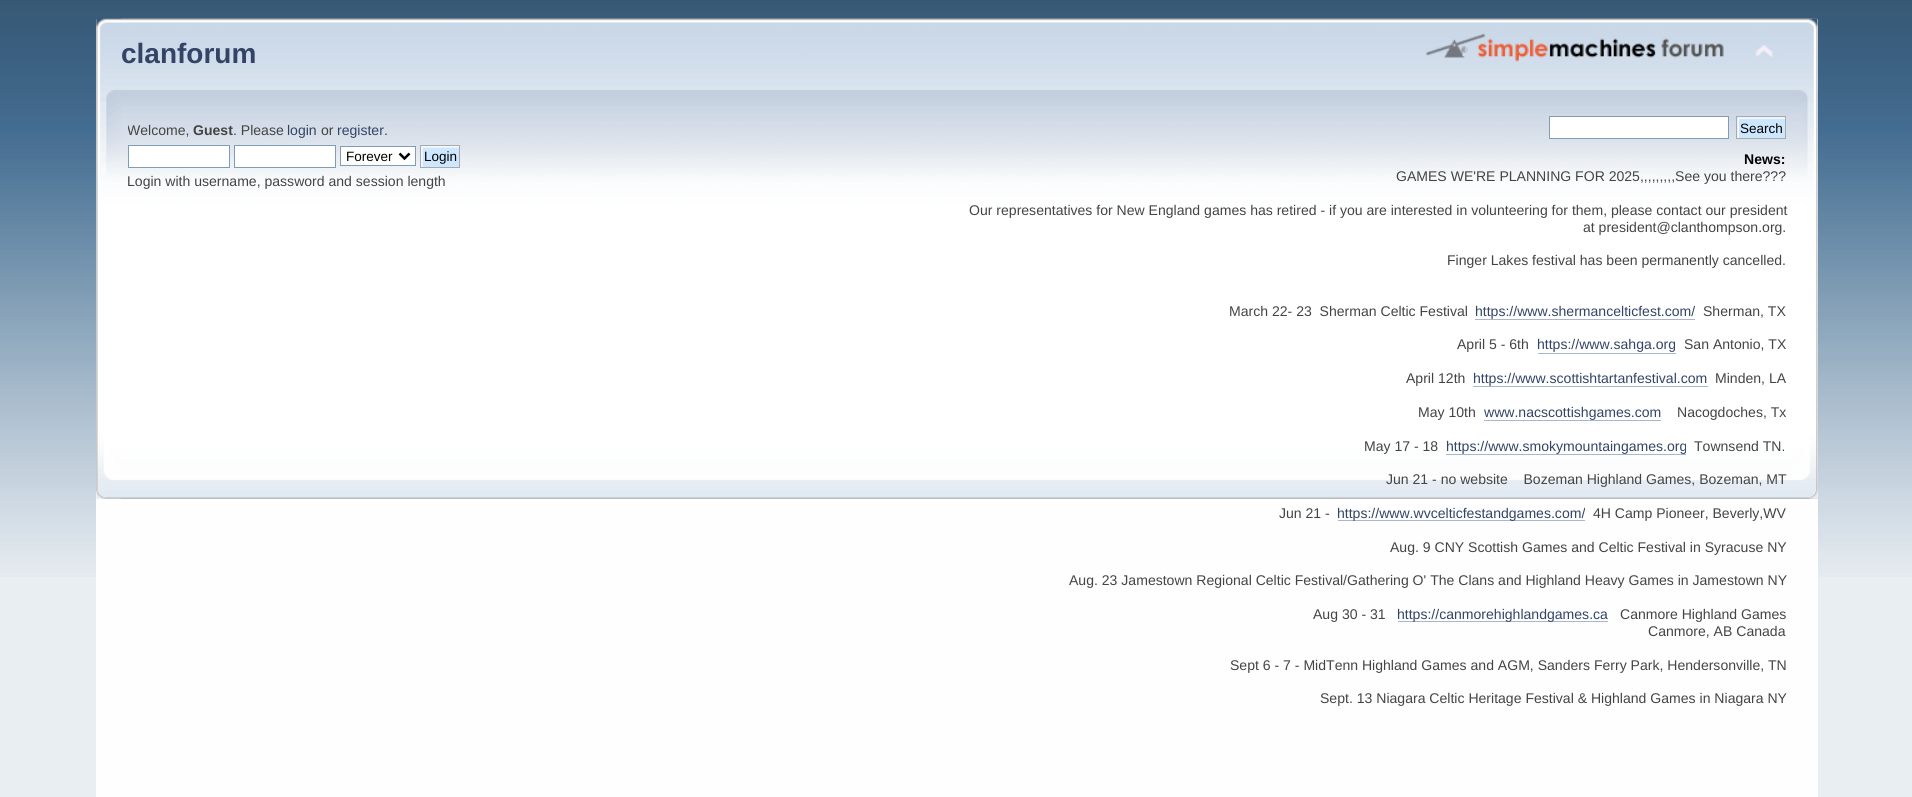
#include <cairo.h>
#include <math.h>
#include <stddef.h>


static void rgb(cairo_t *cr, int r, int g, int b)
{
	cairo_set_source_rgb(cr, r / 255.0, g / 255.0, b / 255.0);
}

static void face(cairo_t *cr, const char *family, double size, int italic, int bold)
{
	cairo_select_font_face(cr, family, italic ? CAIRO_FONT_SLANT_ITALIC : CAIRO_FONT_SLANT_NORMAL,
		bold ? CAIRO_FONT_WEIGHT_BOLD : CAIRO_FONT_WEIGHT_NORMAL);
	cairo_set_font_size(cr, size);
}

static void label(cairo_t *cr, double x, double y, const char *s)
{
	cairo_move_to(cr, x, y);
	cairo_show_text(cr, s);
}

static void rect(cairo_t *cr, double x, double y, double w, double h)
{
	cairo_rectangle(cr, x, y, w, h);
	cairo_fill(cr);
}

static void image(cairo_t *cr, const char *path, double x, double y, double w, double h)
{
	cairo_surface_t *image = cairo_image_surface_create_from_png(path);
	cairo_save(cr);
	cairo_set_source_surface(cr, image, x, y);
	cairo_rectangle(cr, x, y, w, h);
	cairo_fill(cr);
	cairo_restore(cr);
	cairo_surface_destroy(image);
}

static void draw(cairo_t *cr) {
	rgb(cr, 233, 238, 242);
	cairo_paint(cr);
	image(cr, "image0.png", 0, 0, 1912, 577);
	rgb(cr, 254, 254, 254);
	rect(cr, 96, 19, 1722, 778);
	image(cr, "image1.png", 96, 18, 1722, 481);
	image(cr, "image2.png", 121, 18, 1697, 481);
	face(cr, "Liberation Sans", 28, 0, 1);
	rgb(cr, 51, 68, 102);
	label(cr, 121, 63, "clanforum");
	image(cr, "image3.png", 1426, 33, 298, 29);
	image(cr, "image4.png", 1755, 45, 18, 13);
	cairo_save(cr);
	cairo_rectangle(cr, 128, 116, 828, 79);
	cairo_clip(cr);
	face(cr, "Liberation Sans", 14.05, 0, 0);
	rgb(cr, 68, 68, 68);
	label(cr, 127, 135, "Welcome,");
	cairo_restore(cr);
	face(cr, "Liberation Sans", 14.05, 0, 1);
	rgb(cr, 68, 68, 68);
	label(cr, 193, 135, "Guest");
	face(cr, "Liberation Sans", 14.05, 0, 0);
	label(cr, 233, 135, ". Please");
	rgb(cr, 51, 68, 102);
	label(cr, 287, 135, "login");
	rgb(cr, 68, 68, 68);
	label(cr, 321, 135, "or");
	rgb(cr, 51, 68, 102);
	label(cr, 337, 135, "register");
	rgb(cr, 68, 68, 68);
	label(cr, 384, 135, ".");
	rgb(cr, 255, 255, 255);
	cairo_rectangle(cr, 128.5, 145.5, 101, 22);
	cairo_fill_preserve(cr);
	rgb(cr, 127, 157, 185);
	cairo_set_line_width(cr, 1);
	cairo_stroke(cr);
	rgb(cr, 255, 255, 255);
	cairo_rectangle(cr, 234.5, 145.5, 101, 22);
	cairo_fill_preserve(cr);
	rgb(cr, 127, 157, 185);
	cairo_stroke(cr);
	rgb(cr, 255, 255, 255);
	cairo_rectangle(cr, 340.5, 146.5, 75, 19);
	cairo_fill_preserve(cr);
	rgb(cr, 127, 157, 185);
	cairo_stroke(cr);
	cairo_new_path(cr);
	cairo_move_to(cr, 399.5, 153.5);
	cairo_line_to(cr, 404.5, 158.5);
	cairo_line_to(cr, 409.5, 153.5);
	rgb(cr, 0, 0, 0);
	cairo_set_line_width(cr, 2.5);
	cairo_stroke(cr);
	face(cr, "Liberation Sans", 13.5, 0, 0);
	label(cr, 346, 161, "Forever");
	rgb(cr, 205, 231, 255);
	rect(cr, 421, 146, 38, 21);
	image(cr, "image5.png", 421, 146, 38, 21);
	cairo_rectangle(cr, 420.5, 145.5, 39, 22);
	rgb(cr, 170, 170, 170);
	cairo_set_line_width(cr, 1);
	cairo_stroke(cr);
	rgb(cr, 0, 0, 0);
	label(cr, 424, 161, "Login");
	face(cr, "Liberation Sans", 14.05, 0, 0);
	rgb(cr, 68, 68, 68);
	label(cr, 127, 186, "Login with username, password and session length");
	rgb(cr, 255, 255, 255);
	cairo_rectangle(cr, 1549.5, 116.5, 179, 22);
	cairo_fill_preserve(cr);
	rgb(cr, 127, 157, 185);
	cairo_stroke(cr);
	rgb(cr, 205, 231, 255);
	rect(cr, 1737, 117, 48, 21);
	image(cr, "image6.png", 1737, 117, 50, 22);
	cairo_rectangle(cr, 1736.5, 116.5, 49, 22);
	rgb(cr, 170, 170, 170);
	cairo_stroke(cr);
	face(cr, "Liberation Sans", 13.5, 0, 0);
	rgb(cr, 0, 0, 0);
	label(cr, 1740, 133, "Search");
	face(cr, "Liberation Sans", 14.05, 0, 1);
	label(cr, 1744, 164, "News:");
	face(cr, "Liberation Sans", 14.05, 0, 0);
	rgb(cr, 68, 68, 68);
	label(cr, 1396, 181, "GAMES WE'RE PLANNING FOR 2025,,,,,,,,,See you there?\077?");
	label(cr, 969, 215, "Our representatives for New England games has retired - if you are interested in volunteering for them, please contact our president");
	label(cr, 1583, 232, "at president@clanthompson.org.");
	label(cr, 1447, 265, "Finger Lakes festival has been permanently cancelled.");
	label(cr, 1229, 316, "March 22- 23  Sherman Celtic Festival");
	rgb(cr, 51, 68, 102);
	label(cr, 1475, 316, "https://www.shermancelticfest.com/");
	rgb(cr, 168, 182, 207);
	rect(cr, 1475, 319, 220, 1);
	rgb(cr, 68, 68, 68);
	label(cr, 1703, 316, "Sherman, TX");
	label(cr, 1457, 349, "April 5 - 6th");
	rgb(cr, 51, 68, 102);
	label(cr, 1537, 349, "https://www.sahga.org");
	rgb(cr, 168, 182, 207);
	rect(cr, 1538, 353, 138, 1);
	rgb(cr, 68, 68, 68);
	label(cr, 1684, 349, "San Antonio, TX");
	label(cr, 1406, 383, "April 12th");
	rgb(cr, 51, 68, 102);
	label(cr, 1473, 383, "https://www.scottishtartanfestival.com");
	rgb(cr, 168, 182, 207);
	rect(cr, 1473, 386, 235, 1);
	rgb(cr, 68, 68, 68);
	label(cr, 1715, 383, "Minden, LA");
	label(cr, 1418, 417, "May 10th");
	rgb(cr, 51, 68, 102);
	label(cr, 1484, 417, "www.nacscottishgames.com");
	rgb(cr, 168, 182, 207);
	rect(cr, 1484, 420, 177, 1);
	rgb(cr, 68, 68, 68);
	label(cr, 1677, 417, "Nacogdoches, Tx");
	label(cr, 1364, 451, "May 17 - 18");
	rgb(cr, 51, 68, 102);
	label(cr, 1446, 451, "https://www.smokymountaingames.org");
	rgb(cr, 168, 182, 207);
	rect(cr, 1446, 454, 240, 1);
	rgb(cr, 68, 68, 68);
	label(cr, 1694, 451, "Townsend TN.");
	label(cr, 1386, 484, "Jun 21 - no website    Bozeman Highland Games, Bozeman, MT");
	label(cr, 1279, 518, "Jun 21 -");
	rgb(cr, 168, 182, 207);
	rect(cr, 1338, 520, 247, 1);
	rgb(cr, 51, 68, 102);
	label(cr, 1337, 518, "https://www.wvcelticfestandgames.com/");
	rgb(cr, 68, 68, 68);
	label(cr, 1593, 518, "4H Camp Pioneer, Beverly,WV");
	label(cr, 1390, 552, "Aug. 9 CNY Scottish Games and Celtic Festival in Syracuse NY");
	label(cr, 1069, 585, "Aug. 23 Jamestown Regional Celtic Festival/Gathering O' The Clans and Highland Heavy Games in Jamestown NY");
	label(cr, 1313, 619, "Aug 30 - 31");
	rgb(cr, 168, 182, 207);
	rect(cr, 1398, 621, 210, 1);
	rgb(cr, 51, 68, 102);
	label(cr, 1397, 619, "https://canmorehighlandgames.ca");
	rgb(cr, 68, 68, 68);
	label(cr, 1620, 619, "Canmore Highland Games");
	label(cr, 1648, 636, "Canmore, AB Canada");
	label(cr, 1230, 670, "Sept 6 - 7 - MidTenn Highland Games and AGM, Sanders Ferry Park, Hendersonville, TN");
	label(cr, 1320, 703, "Sept. 13 Niagara Celtic Heritage Festival & Highland Games in Niagara NY");
}

int main(void) {
	cairo_surface_t *surface = cairo_image_surface_create(CAIRO_FORMAT_RGB24, 1912, 797);
	cairo_t *cr = cairo_create(surface);
	cairo_font_options_t *options = cairo_font_options_create();
	cairo_font_options_set_hint_metrics(options, CAIRO_HINT_METRICS_OFF);
	cairo_font_options_set_hint_style(options, CAIRO_HINT_STYLE_NONE);
	cairo_set_font_options(cr, options);
	cairo_set_miter_limit(cr, 4);
	draw(cr);
	cairo_surface_write_to_png(surface, "render.png");
	cairo_font_options_destroy(options);
	cairo_destroy(cr);
	cairo_surface_destroy(surface);
	return 0;
}
